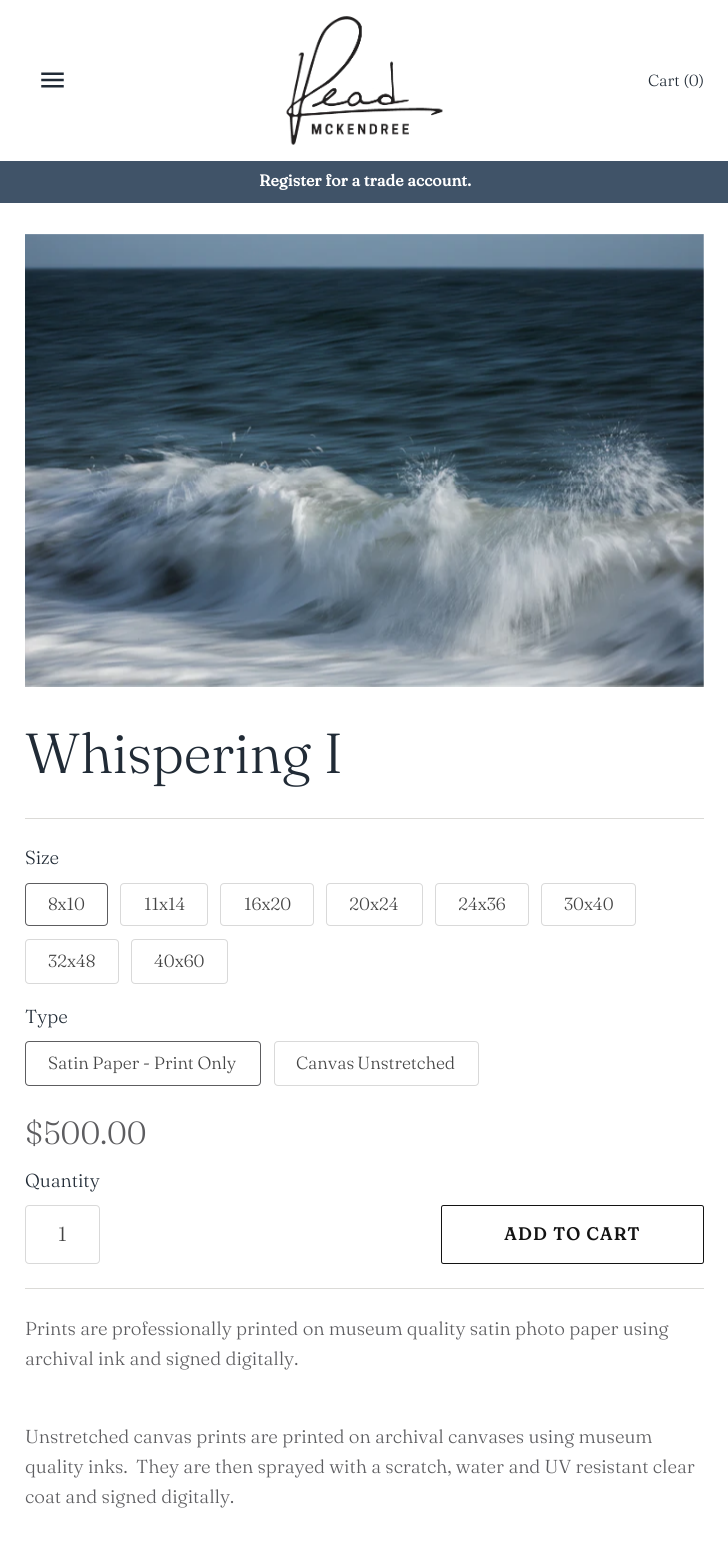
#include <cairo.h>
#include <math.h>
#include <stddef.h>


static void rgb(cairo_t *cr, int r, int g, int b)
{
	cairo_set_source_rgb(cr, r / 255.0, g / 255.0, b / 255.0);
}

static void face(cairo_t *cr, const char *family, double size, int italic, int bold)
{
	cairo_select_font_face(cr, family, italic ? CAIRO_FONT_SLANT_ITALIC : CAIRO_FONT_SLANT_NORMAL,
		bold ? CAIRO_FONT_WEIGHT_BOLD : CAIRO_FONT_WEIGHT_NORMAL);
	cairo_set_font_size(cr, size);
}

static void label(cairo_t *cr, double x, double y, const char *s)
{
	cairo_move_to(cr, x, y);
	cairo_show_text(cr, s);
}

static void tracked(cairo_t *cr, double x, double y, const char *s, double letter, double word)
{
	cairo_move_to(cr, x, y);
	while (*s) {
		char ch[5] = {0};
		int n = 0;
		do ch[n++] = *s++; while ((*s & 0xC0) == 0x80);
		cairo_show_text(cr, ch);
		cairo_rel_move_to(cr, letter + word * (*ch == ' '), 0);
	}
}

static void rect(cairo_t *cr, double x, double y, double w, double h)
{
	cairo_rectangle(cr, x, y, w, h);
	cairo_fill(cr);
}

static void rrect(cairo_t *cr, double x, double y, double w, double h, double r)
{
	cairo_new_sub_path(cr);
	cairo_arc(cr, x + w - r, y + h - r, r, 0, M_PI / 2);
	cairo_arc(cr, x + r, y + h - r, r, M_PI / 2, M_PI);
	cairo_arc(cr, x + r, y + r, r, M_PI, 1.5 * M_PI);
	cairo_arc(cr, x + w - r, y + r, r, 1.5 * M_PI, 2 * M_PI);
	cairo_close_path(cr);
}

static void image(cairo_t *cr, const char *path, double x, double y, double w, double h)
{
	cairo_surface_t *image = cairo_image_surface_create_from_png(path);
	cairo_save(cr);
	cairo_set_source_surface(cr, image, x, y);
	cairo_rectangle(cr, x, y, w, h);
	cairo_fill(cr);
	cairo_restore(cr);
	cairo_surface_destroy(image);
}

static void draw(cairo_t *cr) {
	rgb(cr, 255, 255, 255);
	cairo_paint(cr);
	image(cr, "image0.png", 41, 72, 23, 16);
	image(cr, "image1.png", 286, 16, 157, 129);
	face(cr, "Fraunces Light", 16, 0, 0);
	rgb(cr, 33, 43, 54);
	label(cr, 648, 86, "Cart (0)");
	rgb(cr, 64, 83, 104);
	rect(cr, 0, 161, 728, 42);
	face(cr, "Fraunces", 16, 0, 1);
	rgb(cr, 255, 255, 255);
	label(cr, 259, 186, "Register for a trade account.");
	image(cr, "image2.png", 25, 234, 679, 453);
	face(cr, "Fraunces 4 Light", 56.25, 0, 0);
	rgb(cr, 33, 43, 54);
	label(cr, 25, 773, "Whispering I");
	rgb(cr, 219, 218, 215);
	rect(cr, 25, 818, 679, 1);
	face(cr, "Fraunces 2 Light", 18.75, 0, 0);
	rgb(cr, 33, 43, 54);
	label(cr, 25, 864, "Size");
	rrect(cr, 25.5, 883.5, 82, 42, 3.5);
	rgb(cr, 93, 93, 96);
	cairo_set_line_width(cr, 1);
	cairo_stroke(cr);
	face(cr, "Fraunces Light", 17.5, 0, 0);
	rgb(cr, 68, 68, 68);
	label(cr, 48, 910, "8x10");
	rrect(cr, 120.5, 883.5, 87, 42, 3.5);
	rgb(cr, 217, 217, 217);
	cairo_stroke(cr);
	rgb(cr, 68, 68, 68);
	label(cr, 144, 910, "11x14");
	rrect(cr, 220.5, 883.5, 93, 42, 3.5);
	rgb(cr, 217, 217, 217);
	cairo_stroke(cr);
	rgb(cr, 68, 68, 68);
	label(cr, 244, 910, "16x20");
	rrect(cr, 326.5, 883.5, 96, 42, 3.5);
	rgb(cr, 217, 217, 217);
	cairo_stroke(cr);
	rgb(cr, 68, 68, 68);
	label(cr, 349, 910, "20x24");
	rrect(cr, 435.5, 883.5, 93, 42, 3.5);
	rgb(cr, 217, 217, 217);
	cairo_stroke(cr);
	rgb(cr, 68, 68, 68);
	label(cr, 458, 910, "24x36");
	rrect(cr, 541.5, 883.5, 94, 42, 3.5);
	rgb(cr, 217, 217, 217);
	cairo_stroke(cr);
	rgb(cr, 68, 68, 68);
	label(cr, 564, 910, "30x40");
	rrect(cr, 25.5, 939.5, 93, 44, 3.5);
	rgb(cr, 217, 217, 217);
	cairo_stroke(cr);
	rgb(cr, 68, 68, 68);
	label(cr, 48, 967, "32x48");
	rrect(cr, 131.5, 939.5, 96, 44, 3.5);
	rgb(cr, 217, 217, 217);
	cairo_stroke(cr);
	rgb(cr, 68, 68, 68);
	label(cr, 154, 967, "40x60");
	face(cr, "Fraunces 2 Light", 18.75, 0, 0);
	rgb(cr, 33, 43, 54);
	label(cr, 25, 1023, "Type");
	rrect(cr, 25.5, 1041.5, 235, 44, 3.5);
	rgb(cr, 93, 93, 96);
	cairo_stroke(cr);
	face(cr, "Fraunces Light", 17.5, 0, 0);
	rgb(cr, 68, 68, 68);
	tracked(cr, 48, 1069, "Satin Paper - Print Only", 0, -0.5);
	rrect(cr, 274.5, 1041.5, 204, 44, 3.5);
	rgb(cr, 217, 217, 217);
	cairo_stroke(cr);
	rgb(cr, 68, 68, 68);
	tracked(cr, 296, 1069, "Canvas Unstretched", 0, -1);
	face(cr, "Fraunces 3 Light", 32, 0, 0);
	rgb(cr, 93, 93, 96);
	label(cr, 25, 1144, "$500.00");
	face(cr, "Fraunces 2 Light", 18.75, 0, 0);
	rgb(cr, 33, 43, 54);
	label(cr, 25, 1187, "Quantity");
	rrect(cr, 25.5, 1205.5, 74, 58, 3.5);
	rgb(cr, 217, 217, 217);
	cairo_stroke(cr);
	face(cr, "Fraunces Light", 20, 0, 0);
	rgb(cr, 68, 68, 68);
	label(cr, 58, 1241, "1");
	rrect(cr, 441.5, 1205.5, 262, 58, 2);
	rgb(cr, 19, 19, 19);
	cairo_stroke(cr);
	face(cr, "Fraunces", 17.5, 0, 1);
	tracked(cr, 504, 1240, "ADD TO CART", 1.25, 0);
	rgb(cr, 219, 218, 215);
	rect(cr, 25, 1288, 679, 1);
	face(cr, "Fraunces 2 Light", 18.75, 0, 0);
	rgb(cr, 93, 93, 96);
	label(cr, 25, 1335, "Prints are professionally printed on museum quality satin photo paper using");
	label(cr, 25, 1365, "archival ink and signed digitally.");
	label(cr, 25, 1443, "Unstretched canvas prints are printed on archival canvases using museum");
	label(cr, 25, 1473, "quality inks.  They are then sprayed with a scratch, water and UV resistant clear");
	label(cr, 25, 1503, "coat and signed digitally.");
}

int main(void) {
	cairo_surface_t *surface = cairo_image_surface_create(CAIRO_FORMAT_RGB24, 728, 1563);
	cairo_t *cr = cairo_create(surface);
	cairo_font_options_t *options = cairo_font_options_create();
	cairo_font_options_set_hint_metrics(options, CAIRO_HINT_METRICS_OFF);
	cairo_font_options_set_hint_style(options, CAIRO_HINT_STYLE_NONE);
	cairo_set_font_options(cr, options);
	cairo_set_miter_limit(cr, 4);
	draw(cr);
	cairo_surface_write_to_png(surface, "render.png");
	cairo_font_options_destroy(options);
	cairo_destroy(cr);
	cairo_surface_destroy(surface);
	return 0;
}
